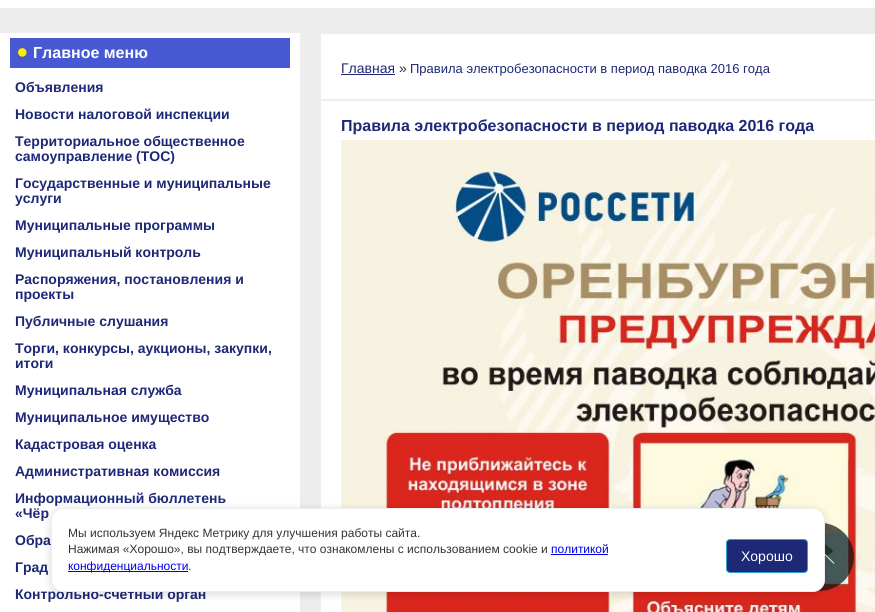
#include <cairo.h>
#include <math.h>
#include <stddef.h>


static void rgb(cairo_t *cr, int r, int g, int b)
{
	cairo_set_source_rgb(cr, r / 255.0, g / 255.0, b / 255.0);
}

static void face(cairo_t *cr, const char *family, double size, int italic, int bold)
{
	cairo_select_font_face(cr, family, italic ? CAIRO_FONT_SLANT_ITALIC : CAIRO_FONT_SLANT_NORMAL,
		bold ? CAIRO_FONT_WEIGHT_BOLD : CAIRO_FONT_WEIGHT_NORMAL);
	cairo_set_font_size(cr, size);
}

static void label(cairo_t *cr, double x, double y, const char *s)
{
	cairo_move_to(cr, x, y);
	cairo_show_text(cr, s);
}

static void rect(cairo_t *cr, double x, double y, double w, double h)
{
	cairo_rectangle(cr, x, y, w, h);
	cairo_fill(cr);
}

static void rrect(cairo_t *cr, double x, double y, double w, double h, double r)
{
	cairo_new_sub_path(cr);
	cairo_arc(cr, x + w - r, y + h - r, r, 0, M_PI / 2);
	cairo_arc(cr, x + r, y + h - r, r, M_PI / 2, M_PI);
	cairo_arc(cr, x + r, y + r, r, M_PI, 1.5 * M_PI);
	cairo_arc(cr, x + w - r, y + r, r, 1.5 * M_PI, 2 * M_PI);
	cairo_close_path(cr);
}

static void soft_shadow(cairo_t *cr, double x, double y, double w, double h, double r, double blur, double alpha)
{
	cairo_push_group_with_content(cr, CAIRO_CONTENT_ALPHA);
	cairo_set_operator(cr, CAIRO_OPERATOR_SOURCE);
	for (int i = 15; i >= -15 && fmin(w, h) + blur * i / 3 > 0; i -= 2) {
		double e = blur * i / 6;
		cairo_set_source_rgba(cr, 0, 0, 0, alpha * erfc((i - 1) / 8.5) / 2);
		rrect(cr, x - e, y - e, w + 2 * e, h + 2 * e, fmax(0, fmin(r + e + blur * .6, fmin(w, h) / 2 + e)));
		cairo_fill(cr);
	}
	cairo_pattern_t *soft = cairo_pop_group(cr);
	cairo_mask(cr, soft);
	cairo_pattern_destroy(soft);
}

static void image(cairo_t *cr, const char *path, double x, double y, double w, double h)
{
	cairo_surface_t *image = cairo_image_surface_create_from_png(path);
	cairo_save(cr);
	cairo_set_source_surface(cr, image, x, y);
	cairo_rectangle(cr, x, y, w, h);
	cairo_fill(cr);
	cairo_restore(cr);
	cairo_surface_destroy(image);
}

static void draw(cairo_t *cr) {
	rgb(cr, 237, 237, 237);
	cairo_paint(cr);
	rgb(cr, 255, 255, 255);
	rect(cr, 0, 0, 875, 8);
	rect(cr, 0, 33, 300, 579);
	rgb(cr, 70, 89, 210);
	rect(cr, 10, 38, 280, 30);
	image(cr, "image0.png", 18, 48, 9, 9);
	face(cr, "Liberation Sans", 16, 0, 1);
	rgb(cr, 255, 255, 255);
	label(cr, 33, 58, "Главное меню");
	face(cr, "Liberation Sans", 14, 0, 1);
	rgb(cr, 29, 41, 119);
	label(cr, 15, 92, "Объявления");
	label(cr, 15, 119, "Новости налоговой инспекции");
	label(cr, 15, 146, "Территориальное общественное");
	label(cr, 15, 161, "самоуправление (ТОС)");
	label(cr, 15, 188, "Государственные и муниципальные");
	label(cr, 15, 203, "услуги");
	label(cr, 15, 230, "Муниципальные программы");
	label(cr, 15, 257, "Муниципальный контроль");
	label(cr, 15, 284, "Распоряжения, постановления и");
	label(cr, 15, 299, "проекты");
	label(cr, 15, 326, "Публичные слушания");
	label(cr, 15, 353, "Торги, конкурсы, аукционы, закупки,");
	label(cr, 15, 368, "итоги");
	label(cr, 15, 395, "Муниципальная служба");
	label(cr, 15, 422, "Муниципальное имущество");
	label(cr, 15, 449, "Кадастровая оценка");
	label(cr, 15, 476, "Административная комиссия");
	label(cr, 15, 503, "Информационный бюллетень");
	label(cr, 15, 518, "«Чёр");
	label(cr, 15, 545, "Обра");
	label(cr, 15, 572, "Град");
	label(cr, 15, 599, "Контрольно-счётный орган");
	rgb(cr, 255, 255, 255);
	cairo_rectangle(cr, 320.5, 33.5, 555, 66);
	cairo_fill_preserve(cr);
	rgb(cr, 235, 239, 243);
	cairo_set_line_width(cr, 1);
	cairo_stroke(cr);
	face(cr, "Liberation Sans", 14, 0, 0);
	rgb(cr, 29, 41, 119);
	label(cr, 341, 73, "Главная");
	rect(cr, 341, 74, 54, 1);
	rgb(cr, 51, 51, 51);
	label(cr, 399, 73, "»");
	face(cr, "Liberation Sans", 13, 0, 0);
	rgb(cr, 29, 41, 119);
	label(cr, 410, 73, "Правила электробезопасности в период паводка 2016 года");
	rgb(cr, 255, 255, 255);
	cairo_rectangle(cr, 320.5, 100.5, 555, 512);
	cairo_fill_preserve(cr);
	rgb(cr, 235, 239, 243);
	cairo_stroke(cr);
	face(cr, "Liberation Sans", 16, 0, 1);
	rgb(cr, 29, 41, 119);
	label(cr, 341, 131, "Правила электробезопасности в период паводка 2016 года");
	image(cr, "image1.png", 341, 140, 534, 472);
	image(cr, "image2.png", 817, 523, 37, 68);
	rgb(cr, 0, 0, 0);
	soft_shadow(cr, 51, 510, 774, 84, 12, 4.5, 0.15);
	rgb(cr, 255, 255, 255);
	rrect(cr, 51.5, 508.5, 773, 83, 11.5);
	cairo_fill_preserve(cr);
	rgb(cr, 238, 238, 238);
	cairo_stroke(cr);
	face(cr, "Liberation Sans", 12, 0, 0);
	rgb(cr, 51, 51, 51);
	label(cr, 68, 537, "Мы используем Яндекс Метрику для улучшения работы сайта.");
	label(cr, 68, 553, "Нажимая «Хорошо», вы подтверждаете, что ознакомлены с использованием cookie и");
	rgb(cr, 0, 0, 238);
	label(cr, 551, 553, "политикой");
	rect(cr, 551, 554, 57, 1);
	rect(cr, 68, 571, 120, 1);
	label(cr, 68, 570, "конфиденциальности");
	rgb(cr, 51, 51, 51);
	label(cr, 188, 570, ".");
	rgb(cr, 29, 41, 119);
	rrect(cr, 726.5, 539.5, 81, 33, 3.5);
	cairo_fill_preserve(cr);
	rgb(cr, 45, 160, 206);
	cairo_stroke(cr);
	face(cr, "Liberation Sans", 14, 0, 0);
	rgb(cr, 255, 255, 255);
	label(cr, 741, 561, "Хорошо");
}

int main(void) {
	cairo_surface_t *surface = cairo_image_surface_create(CAIRO_FORMAT_RGB24, 875, 612);
	cairo_t *cr = cairo_create(surface);
	cairo_font_options_t *options = cairo_font_options_create();
	cairo_font_options_set_hint_metrics(options, CAIRO_HINT_METRICS_OFF);
	cairo_font_options_set_hint_style(options, CAIRO_HINT_STYLE_NONE);
	cairo_set_font_options(cr, options);
	cairo_set_miter_limit(cr, 4);
	draw(cr);
	cairo_surface_write_to_png(surface, "render.png");
	cairo_font_options_destroy(options);
	cairo_destroy(cr);
	cairo_surface_destroy(surface);
	return 0;
}
